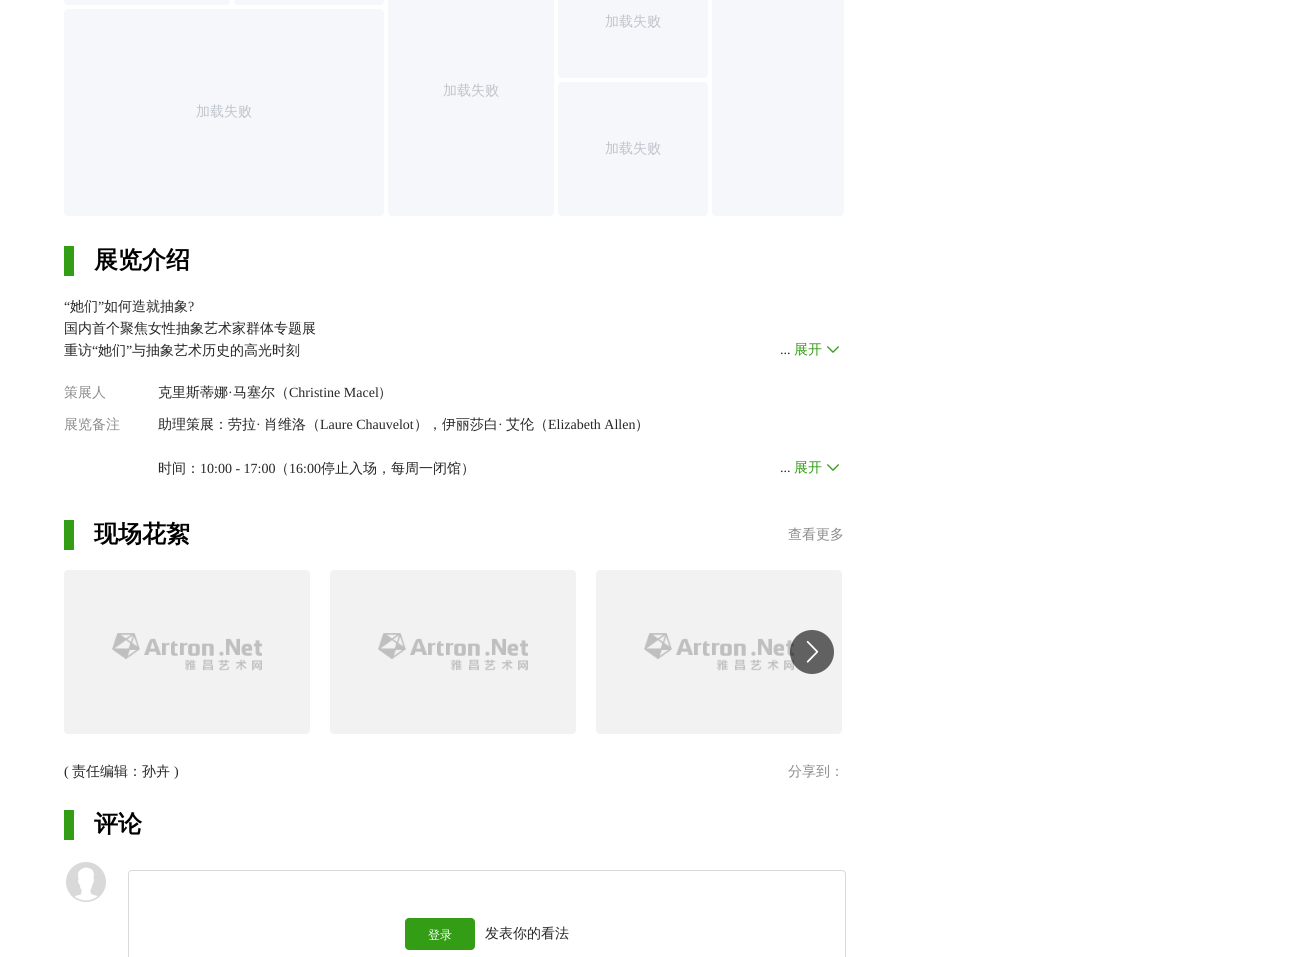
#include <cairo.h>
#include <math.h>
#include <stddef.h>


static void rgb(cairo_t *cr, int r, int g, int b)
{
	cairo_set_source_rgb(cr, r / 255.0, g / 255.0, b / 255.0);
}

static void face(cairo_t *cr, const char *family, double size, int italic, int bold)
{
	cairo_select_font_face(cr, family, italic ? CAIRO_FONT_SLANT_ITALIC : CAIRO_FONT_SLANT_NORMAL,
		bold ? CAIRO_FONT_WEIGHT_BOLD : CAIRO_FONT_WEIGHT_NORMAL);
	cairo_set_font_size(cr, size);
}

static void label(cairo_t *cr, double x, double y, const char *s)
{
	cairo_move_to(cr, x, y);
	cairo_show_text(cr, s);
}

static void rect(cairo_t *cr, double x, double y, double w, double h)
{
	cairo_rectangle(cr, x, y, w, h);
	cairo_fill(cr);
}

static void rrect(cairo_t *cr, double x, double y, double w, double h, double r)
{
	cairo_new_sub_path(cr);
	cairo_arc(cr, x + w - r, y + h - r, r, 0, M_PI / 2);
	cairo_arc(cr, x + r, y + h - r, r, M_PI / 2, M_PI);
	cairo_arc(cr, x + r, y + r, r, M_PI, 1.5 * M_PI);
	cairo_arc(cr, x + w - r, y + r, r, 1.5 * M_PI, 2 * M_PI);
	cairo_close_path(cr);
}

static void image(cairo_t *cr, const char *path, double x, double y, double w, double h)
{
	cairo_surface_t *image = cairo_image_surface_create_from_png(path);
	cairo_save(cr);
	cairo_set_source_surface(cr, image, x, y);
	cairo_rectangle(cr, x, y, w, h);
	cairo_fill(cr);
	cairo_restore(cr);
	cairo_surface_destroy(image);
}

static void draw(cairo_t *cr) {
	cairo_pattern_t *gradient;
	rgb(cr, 255, 255, 255);
	cairo_paint(cr);
	rgb(cr, 245, 247, 250);
	rrect(cr, 64, -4, 166, 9, 4);
	cairo_fill(cr);
	rrect(cr, 234, -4, 150, 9, 4);
	cairo_fill(cr);
	rrect(cr, 64, 9, 320, 207, 4);
	cairo_fill(cr);
	face(cr, "WenQuanYi Zen Hei Medium", 14, 0, 0);
	rgb(cr, 192, 196, 204);
	label(cr, 196, 116, "加载失败");
	rgb(cr, 245, 247, 250);
	rrect(cr, 388, -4, 166, 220, 4);
	cairo_fill(cr);
	rgb(cr, 192, 196, 204);
	label(cr, 443, 95, "加载失败");
	rgb(cr, 245, 247, 250);
	rrect(cr, 558, -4, 150, 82, 4);
	cairo_fill(cr);
	rgb(cr, 192, 196, 204);
	label(cr, 605, 26, "加载失败");
	rgb(cr, 245, 247, 250);
	rrect(cr, 558, 82, 150, 134, 4);
	cairo_fill(cr);
	rgb(cr, 192, 196, 204);
	label(cr, 605, 153, "加载失败");
	rgb(cr, 245, 247, 250);
	rrect(cr, 712, -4, 132, 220, 4);
	cairo_fill(cr);
	rgb(cr, 50, 157, 21);
	rect(cr, 64, 246, 10, 30);
	face(cr, "WenQuanYi Zen Hei", 24, 0, 1);
	rgb(cr, 0, 0, 0);
	label(cr, 94, 268, "展览介绍");
	face(cr, "Liberation Serif", 14, 0, 0);
	rgb(cr, 38, 38, 38);
	label(cr, 64, 311, "“");
	face(cr, "WenQuanYi Zen Hei Medium", 14, 0, 0);
	label(cr, 70, 311, "她们");
	face(cr, "Liberation Serif", 14, 0, 0);
	label(cr, 98, 311, "”");
	face(cr, "WenQuanYi Zen Hei Medium", 14, 0, 0);
	label(cr, 104, 311, "如何造就抽象");
	face(cr, "Liberation Serif", 14, 0, 0);
	label(cr, 188, 311, "?");
	face(cr, "WenQuanYi Zen Hei Medium", 14, 0, 0);
	label(cr, 64, 333, "国内首个聚焦女性抽象艺术家群体专题展");
	label(cr, 64, 355, "重访");
	face(cr, "Liberation Serif", 14, 0, 0);
	label(cr, 92, 355, "“");
	face(cr, "WenQuanYi Zen Hei Medium", 14, 0, 0);
	label(cr, 98, 355, "她们");
	face(cr, "Liberation Serif", 14, 0, 0);
	label(cr, 126, 355, "”");
	face(cr, "WenQuanYi Zen Hei Medium", 14, 0, 0);
	label(cr, 132, 355, "与抽象艺术历史的高光时刻");
	face(cr, "Liberation Serif", 14, 0, 0);
	label(cr, 780, 354, "...");
	face(cr, "WenQuanYi Zen Hei Medium", 14, 0, 0);
	rgb(cr, 50, 157, 21);
	label(cr, 794, 354, "展开");
	image(cr, "image0.png", 827, 346, 12, 7);
	rgb(cr, 140, 140, 140);
	label(cr, 64, 397, "策展人");
	rgb(cr, 38, 38, 38);
	label(cr, 158, 397, "克里斯蒂娜");
	face(cr, "Liberation Serif", 14, 0, 0);
	label(cr, 228, 397, "·");
	face(cr, "WenQuanYi Zen Hei Medium", 14, 0, 0);
	label(cr, 233, 397, "马塞尔（");
	face(cr, "Liberation Serif", 14, 0, 0);
	label(cr, 289, 397, "Christine Macel");
	face(cr, "WenQuanYi Zen Hei Medium", 14, 0, 0);
	label(cr, 378, 397, "）");
	rgb(cr, 140, 140, 140);
	label(cr, 64, 429, "展览备注");
	rgb(cr, 38, 38, 38);
	label(cr, 158, 429, "助理策展：劳拉");
	face(cr, "Liberation Serif", 14, 0, 0);
	label(cr, 256, 429, "·");
	face(cr, "WenQuanYi Zen Hei Medium", 14, 0, 0);
	label(cr, 264, 429, "肖维洛（");
	face(cr, "Liberation Serif", 14, 0, 0);
	label(cr, 320, 429, "Laure Chauvelot");
	face(cr, "WenQuanYi Zen Hei Medium", 14, 0, 0);
	label(cr, 414, 429, "），伊丽莎白");
	face(cr, "Liberation Serif", 14, 0, 0);
	label(cr, 498, 429, "·");
	face(cr, "WenQuanYi Zen Hei Medium", 14, 0, 0);
	label(cr, 506, 429, "艾伦（");
	face(cr, "Liberation Serif", 14, 0, 0);
	label(cr, 548, 429, "Elizabeth Allen");
	face(cr, "WenQuanYi Zen Hei Medium", 14, 0, 0);
	label(cr, 635, 429, "）");
	label(cr, 158, 473, "时间：");
	face(cr, "Liberation Serif", 14, 0, 0);
	label(cr, 200, 473, "10:00 - 17:00");
	face(cr, "WenQuanYi Zen Hei Medium", 14, 0, 0);
	label(cr, 275, 473, "（");
	face(cr, "Liberation Serif", 14, 0, 0);
	label(cr, 289, 473, "16:00");
	face(cr, "WenQuanYi Zen Hei Medium", 14, 0, 0);
	label(cr, 321, 473, "停止入场，每周一闭馆）");
	face(cr, "Liberation Serif", 14, 0, 0);
	label(cr, 780, 472, "...");
	face(cr, "WenQuanYi Zen Hei Medium", 14, 0, 0);
	rgb(cr, 50, 157, 21);
	label(cr, 794, 472, "展开");
	image(cr, "image0.png", 827, 464, 12, 7);
	rect(cr, 64, 520, 10, 30);
	face(cr, "WenQuanYi Zen Hei", 24, 0, 1);
	rgb(cr, 0, 0, 0);
	label(cr, 94, 542, "现场花絮");
	face(cr, "WenQuanYi Zen Hei Medium", 14, 0, 0);
	rgb(cr, 140, 140, 140);
	label(cr, 788, 539, "查看更多");
	gradient = cairo_pattern_create_linear(64, 652, 1048, 652);
	cairo_pattern_add_color_stop_rgba(gradient, 0.25, 0.949, 0.949, 0.949, 1);
	cairo_pattern_add_color_stop_rgba(gradient, 0.37, 0.902, 0.902, 0.902, 1);
	cairo_pattern_add_color_stop_rgba(gradient, 0.63, 0.949, 0.949, 0.949, 1);
	cairo_set_source(cr, gradient);
	cairo_pattern_destroy(gradient);
	rrect(cr, 64, 570, 246, 164, 4);
	cairo_fill(cr);
	image(cr, "image1.png", 112, 633, 150, 38);
	gradient = cairo_pattern_create_linear(330, 652, 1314, 652);
	cairo_pattern_add_color_stop_rgba(gradient, 0.25, 0.949, 0.949, 0.949, 1);
	cairo_pattern_add_color_stop_rgba(gradient, 0.37, 0.902, 0.902, 0.902, 1);
	cairo_pattern_add_color_stop_rgba(gradient, 0.63, 0.949, 0.949, 0.949, 1);
	cairo_set_source(cr, gradient);
	cairo_pattern_destroy(gradient);
	rrect(cr, 330, 570, 246, 164, 4);
	cairo_fill(cr);
	image(cr, "image2.png", 378, 633, 150, 38);
	gradient = cairo_pattern_create_linear(596, 652, 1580, 652);
	cairo_pattern_add_color_stop_rgba(gradient, 0.25, 0.949, 0.949, 0.949, 1);
	cairo_pattern_add_color_stop_rgba(gradient, 0.37, 0.902, 0.902, 0.902, 1);
	cairo_pattern_add_color_stop_rgba(gradient, 0.63, 0.949, 0.949, 0.949, 1);
	cairo_set_source(cr, gradient);
	cairo_pattern_destroy(gradient);
	rrect(cr, 596, 570, 246, 164, 4);
	cairo_fill(cr);
	image(cr, "image1.png", 644, 633, 150, 38);
	cairo_set_source_rgba(cr, 0, 0, 0, 0.6);
	cairo_arc(cr, 812, 652, 22, 0, 2 * M_PI);
	cairo_fill(cr);
	image(cr, "image3.png", 806, 640, 13, 23);
	face(cr, "Liberation Serif", 14, 0, 0);
	rgb(cr, 38, 38, 38);
	label(cr, 64, 776, "(");
	face(cr, "WenQuanYi Zen Hei Medium", 14, 0, 0);
	label(cr, 72, 776, "责任编辑：孙卉");
	face(cr, "Liberation Serif", 14, 0, 0);
	label(cr, 174, 776, ")");
	face(cr, "WenQuanYi Zen Hei Medium", 14, 0, 0);
	rgb(cr, 140, 140, 140);
	label(cr, 788, 776, "分享到：");
	rgb(cr, 50, 157, 21);
	rect(cr, 64, 810, 10, 30);
	face(cr, "WenQuanYi Zen Hei", 24, 0, 1);
	rgb(cr, 0, 0, 0);
	label(cr, 94, 832, "评论");
	image(cr, "image4.png", 66, 862, 40, 40);
	rrect(cr, 128.5, 870.5, 717, 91, 3.5);
	rgb(cr, 217, 217, 217);
	cairo_set_line_width(cr, 1);
	cairo_stroke(cr);
	rgb(cr, 50, 157, 21);
	rrect(cr, 405.5, 918.5, 69, 31, 3.5);
	cairo_fill_preserve(cr);
	cairo_stroke(cr);
	face(cr, "WenQuanYi Zen Hei Medium", 12, 0, 0);
	rgb(cr, 255, 255, 255);
	label(cr, 428, 939, "登录");
	face(cr, "WenQuanYi Zen Hei Medium", 14, 0, 0);
	rgb(cr, 38, 38, 38);
	label(cr, 485, 938, "发表你的看法");
}

int main(void) {
	cairo_surface_t *surface = cairo_image_surface_create(CAIRO_FORMAT_RGB24, 1308, 957);
	cairo_t *cr = cairo_create(surface);
	cairo_font_options_t *options = cairo_font_options_create();
	cairo_font_options_set_hint_metrics(options, CAIRO_HINT_METRICS_OFF);
	cairo_font_options_set_hint_style(options, CAIRO_HINT_STYLE_NONE);
	cairo_set_font_options(cr, options);
	cairo_set_miter_limit(cr, 4);
	draw(cr);
	cairo_surface_write_to_png(surface, "render.png");
	cairo_font_options_destroy(options);
	cairo_destroy(cr);
	cairo_surface_destroy(surface);
	return 0;
}
